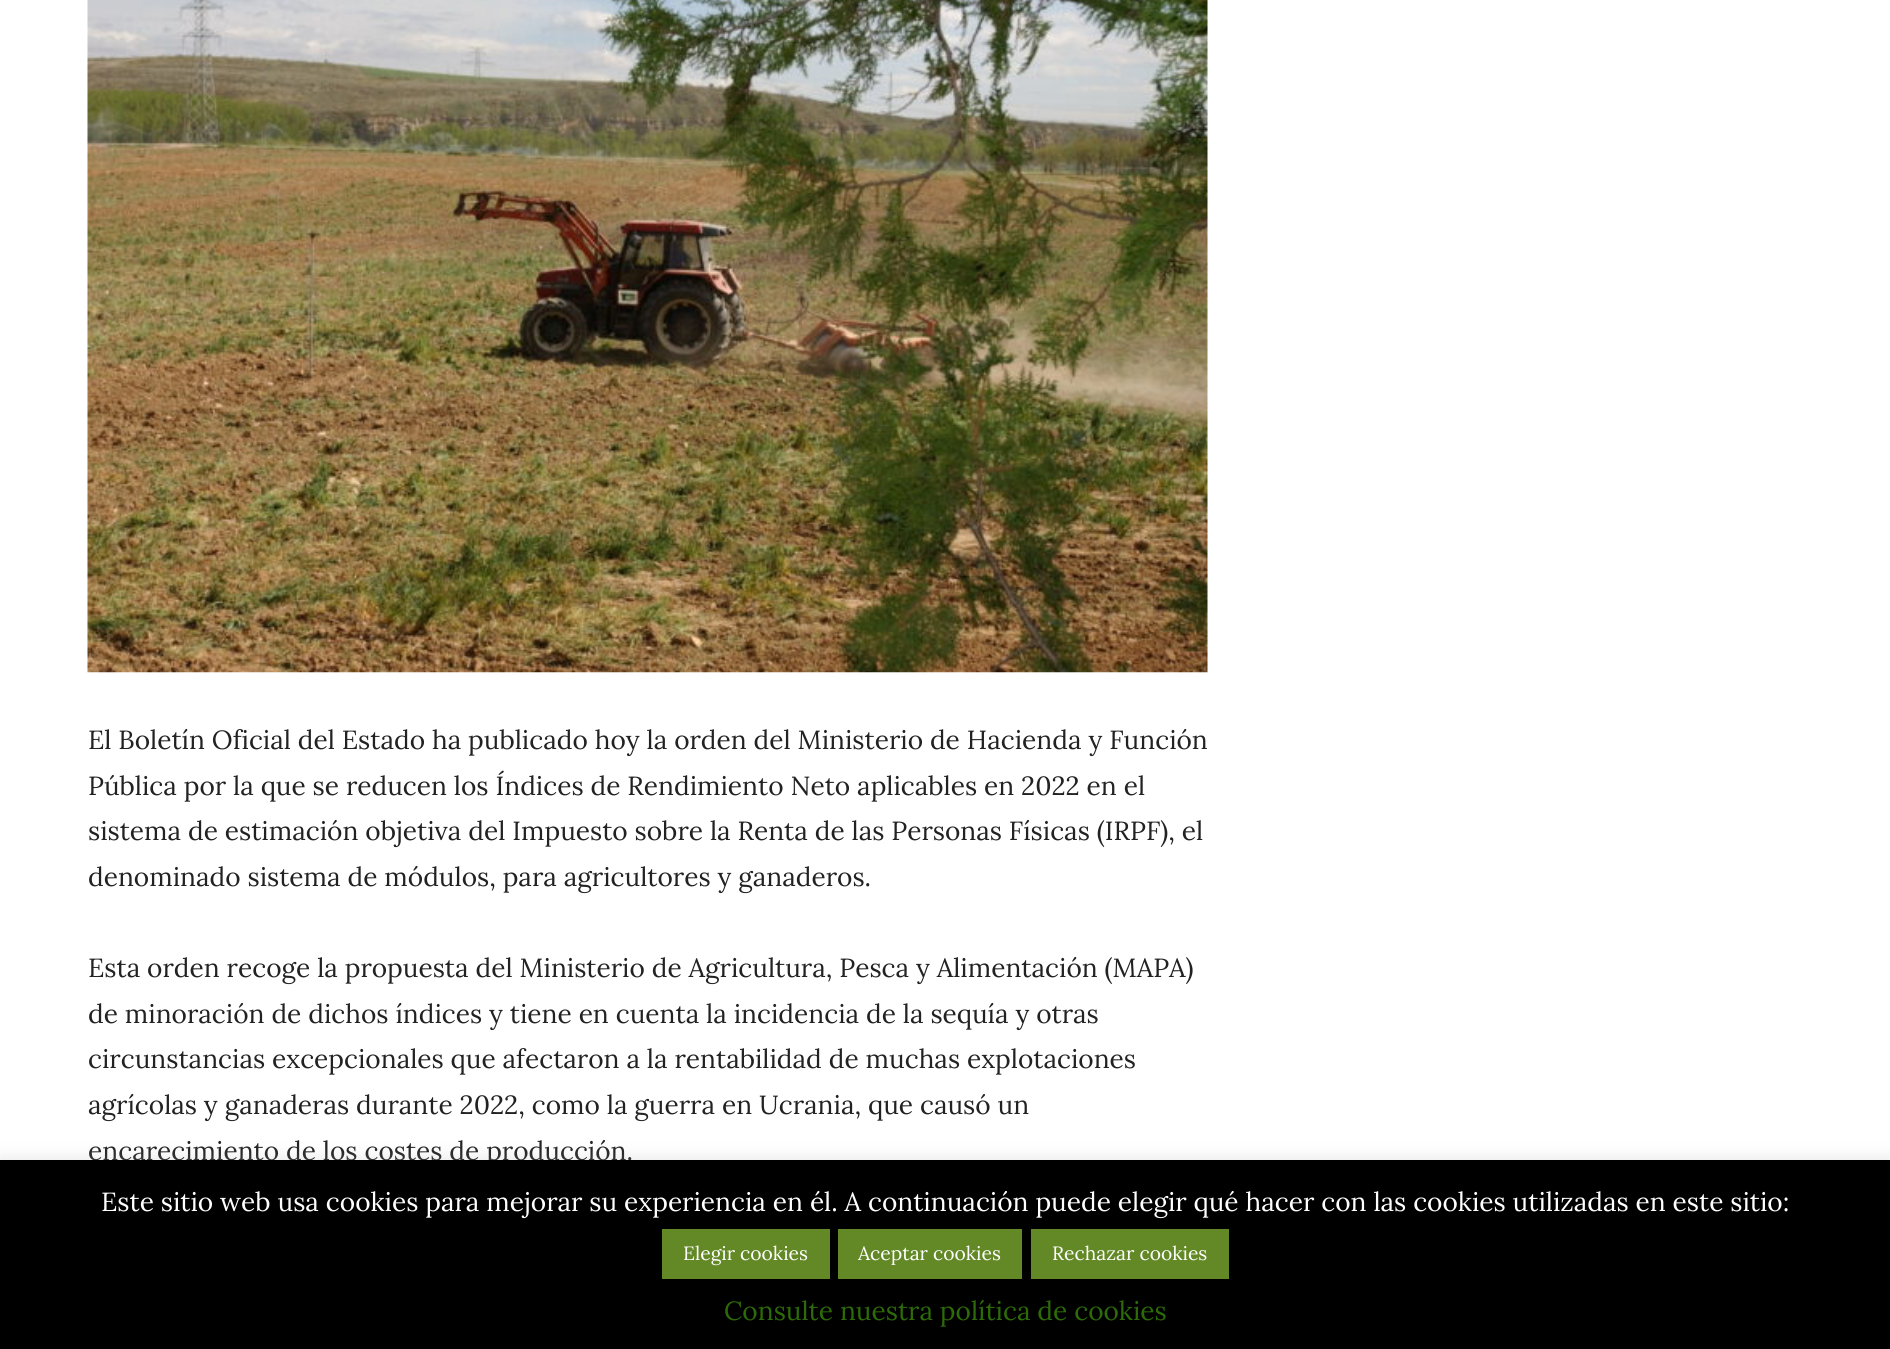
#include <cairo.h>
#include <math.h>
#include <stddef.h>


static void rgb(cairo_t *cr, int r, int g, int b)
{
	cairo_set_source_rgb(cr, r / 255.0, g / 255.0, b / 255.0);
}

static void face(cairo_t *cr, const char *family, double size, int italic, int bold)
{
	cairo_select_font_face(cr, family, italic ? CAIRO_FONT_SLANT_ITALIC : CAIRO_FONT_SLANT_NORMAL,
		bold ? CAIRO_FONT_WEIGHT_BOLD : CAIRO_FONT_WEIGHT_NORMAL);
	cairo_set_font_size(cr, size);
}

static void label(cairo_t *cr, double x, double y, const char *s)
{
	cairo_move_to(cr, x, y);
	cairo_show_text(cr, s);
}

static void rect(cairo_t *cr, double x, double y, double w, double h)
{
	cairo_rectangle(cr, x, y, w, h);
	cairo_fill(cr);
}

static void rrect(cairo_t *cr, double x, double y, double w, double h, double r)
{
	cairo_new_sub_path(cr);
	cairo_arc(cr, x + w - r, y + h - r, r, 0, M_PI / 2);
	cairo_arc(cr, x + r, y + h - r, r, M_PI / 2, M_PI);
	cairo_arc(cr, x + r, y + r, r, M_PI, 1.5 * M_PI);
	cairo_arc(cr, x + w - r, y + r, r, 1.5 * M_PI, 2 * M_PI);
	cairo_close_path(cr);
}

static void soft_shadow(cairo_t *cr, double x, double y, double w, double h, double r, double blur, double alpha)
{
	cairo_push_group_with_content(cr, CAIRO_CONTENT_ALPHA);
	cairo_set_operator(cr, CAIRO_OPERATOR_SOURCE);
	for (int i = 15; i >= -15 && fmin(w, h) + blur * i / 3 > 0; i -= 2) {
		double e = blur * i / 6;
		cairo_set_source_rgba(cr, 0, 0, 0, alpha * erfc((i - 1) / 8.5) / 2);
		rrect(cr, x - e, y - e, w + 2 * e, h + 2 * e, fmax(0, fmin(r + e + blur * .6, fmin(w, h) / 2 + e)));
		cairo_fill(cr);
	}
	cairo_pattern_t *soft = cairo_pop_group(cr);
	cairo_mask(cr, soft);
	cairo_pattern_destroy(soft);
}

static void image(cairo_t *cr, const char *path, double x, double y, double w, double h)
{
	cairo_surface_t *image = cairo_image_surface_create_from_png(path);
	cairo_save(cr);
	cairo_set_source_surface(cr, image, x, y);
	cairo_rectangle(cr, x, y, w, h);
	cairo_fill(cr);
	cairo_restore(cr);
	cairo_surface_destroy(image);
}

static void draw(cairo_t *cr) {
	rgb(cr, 255, 255, 255);
	cairo_paint(cr);
	image(cr, "image0.png", 87, 0, 1121, 673);
	face(cr, "Lora", 26.25, 0, 0);
	rgb(cr, 34, 34, 34);
	label(cr, 88, 749, "El Boletín Oficial del Estado ha publicado hoy la orden del Ministerio de Hacienda y Función");
	label(cr, 88, 795, "Pública por la que se reducen los Índices de Rendimiento Neto aplicables en 2022 en el");
	label(cr, 88, 840, "sistema de estimación objetiva del Impuesto sobre la Renta de las Personas Físicas (IRPF), el");
	label(cr, 88, 886, "denominado sistema de módulos, para agricultores y ganaderos.");
	label(cr, 88, 977, "Esta orden recoge la propuesta del Ministerio de Agricultura, Pesca y Alimentación (MAPA)");
	label(cr, 88, 1023, "de minoración de dichos índices y tiene en cuenta la incidencia de la sequía y otras");
	label(cr, 88, 1068, "circunstancias excepcionales que afectaron a la rentabilidad de muchas explotaciones");
	label(cr, 88, 1114, "agrícolas y ganaderas durante 2022, como la guerra en Ucrania, que causó un");
	label(cr, 88, 1160, "encarecimiento de los costes de producción.");
	rgb(cr, 172, 171, 171);
	soft_shadow(cr, 0, 1159, 1890, 189, 0, 9, 0.3);
	rgb(cr, 0, 0, 0);
	rect(cr, 0, 1160, 1890, 189);
	rgb(cr, 255, 255, 255);
	label(cr, 101, 1211, "Este sitio web usa cookies para mejorar su experiencia en él. A continuación puede elegir qué hacer con las cookies utilizadas en este sitio:");
	rgb(cr, 99, 137, 38);
	rect(cr, 662, 1229, 168, 50);
	face(cr, "Lora", 19.25, 0, 0);
	rgb(cr, 255, 255, 255);
	label(cr, 683, 1260, "Elegir cookies");
	rgb(cr, 99, 137, 38);
	rect(cr, 838, 1229, 184, 50);
	rgb(cr, 255, 255, 255);
	label(cr, 858, 1260, "Aceptar cookies");
	rgb(cr, 99, 137, 38);
	rect(cr, 1031, 1229, 198, 50);
	rgb(cr, 255, 255, 255);
	label(cr, 1052, 1260, "Rechazar cookies");
	face(cr, "Lora", 26.25, 0, 0);
	rgb(cr, 44, 107, 7);
	label(cr, 724, 1320, "Consulte nuestra política de cookies");
}

int main(void) {
	cairo_surface_t *surface = cairo_image_surface_create(CAIRO_FORMAT_RGB24, 1890, 1349);
	cairo_t *cr = cairo_create(surface);
	cairo_font_options_t *options = cairo_font_options_create();
	cairo_font_options_set_hint_metrics(options, CAIRO_HINT_METRICS_OFF);
	cairo_font_options_set_hint_style(options, CAIRO_HINT_STYLE_NONE);
	cairo_set_font_options(cr, options);
	cairo_set_miter_limit(cr, 4);
	draw(cr);
	cairo_surface_write_to_png(surface, "render.png");
	cairo_font_options_destroy(options);
	cairo_destroy(cr);
	cairo_surface_destroy(surface);
	return 0;
}
